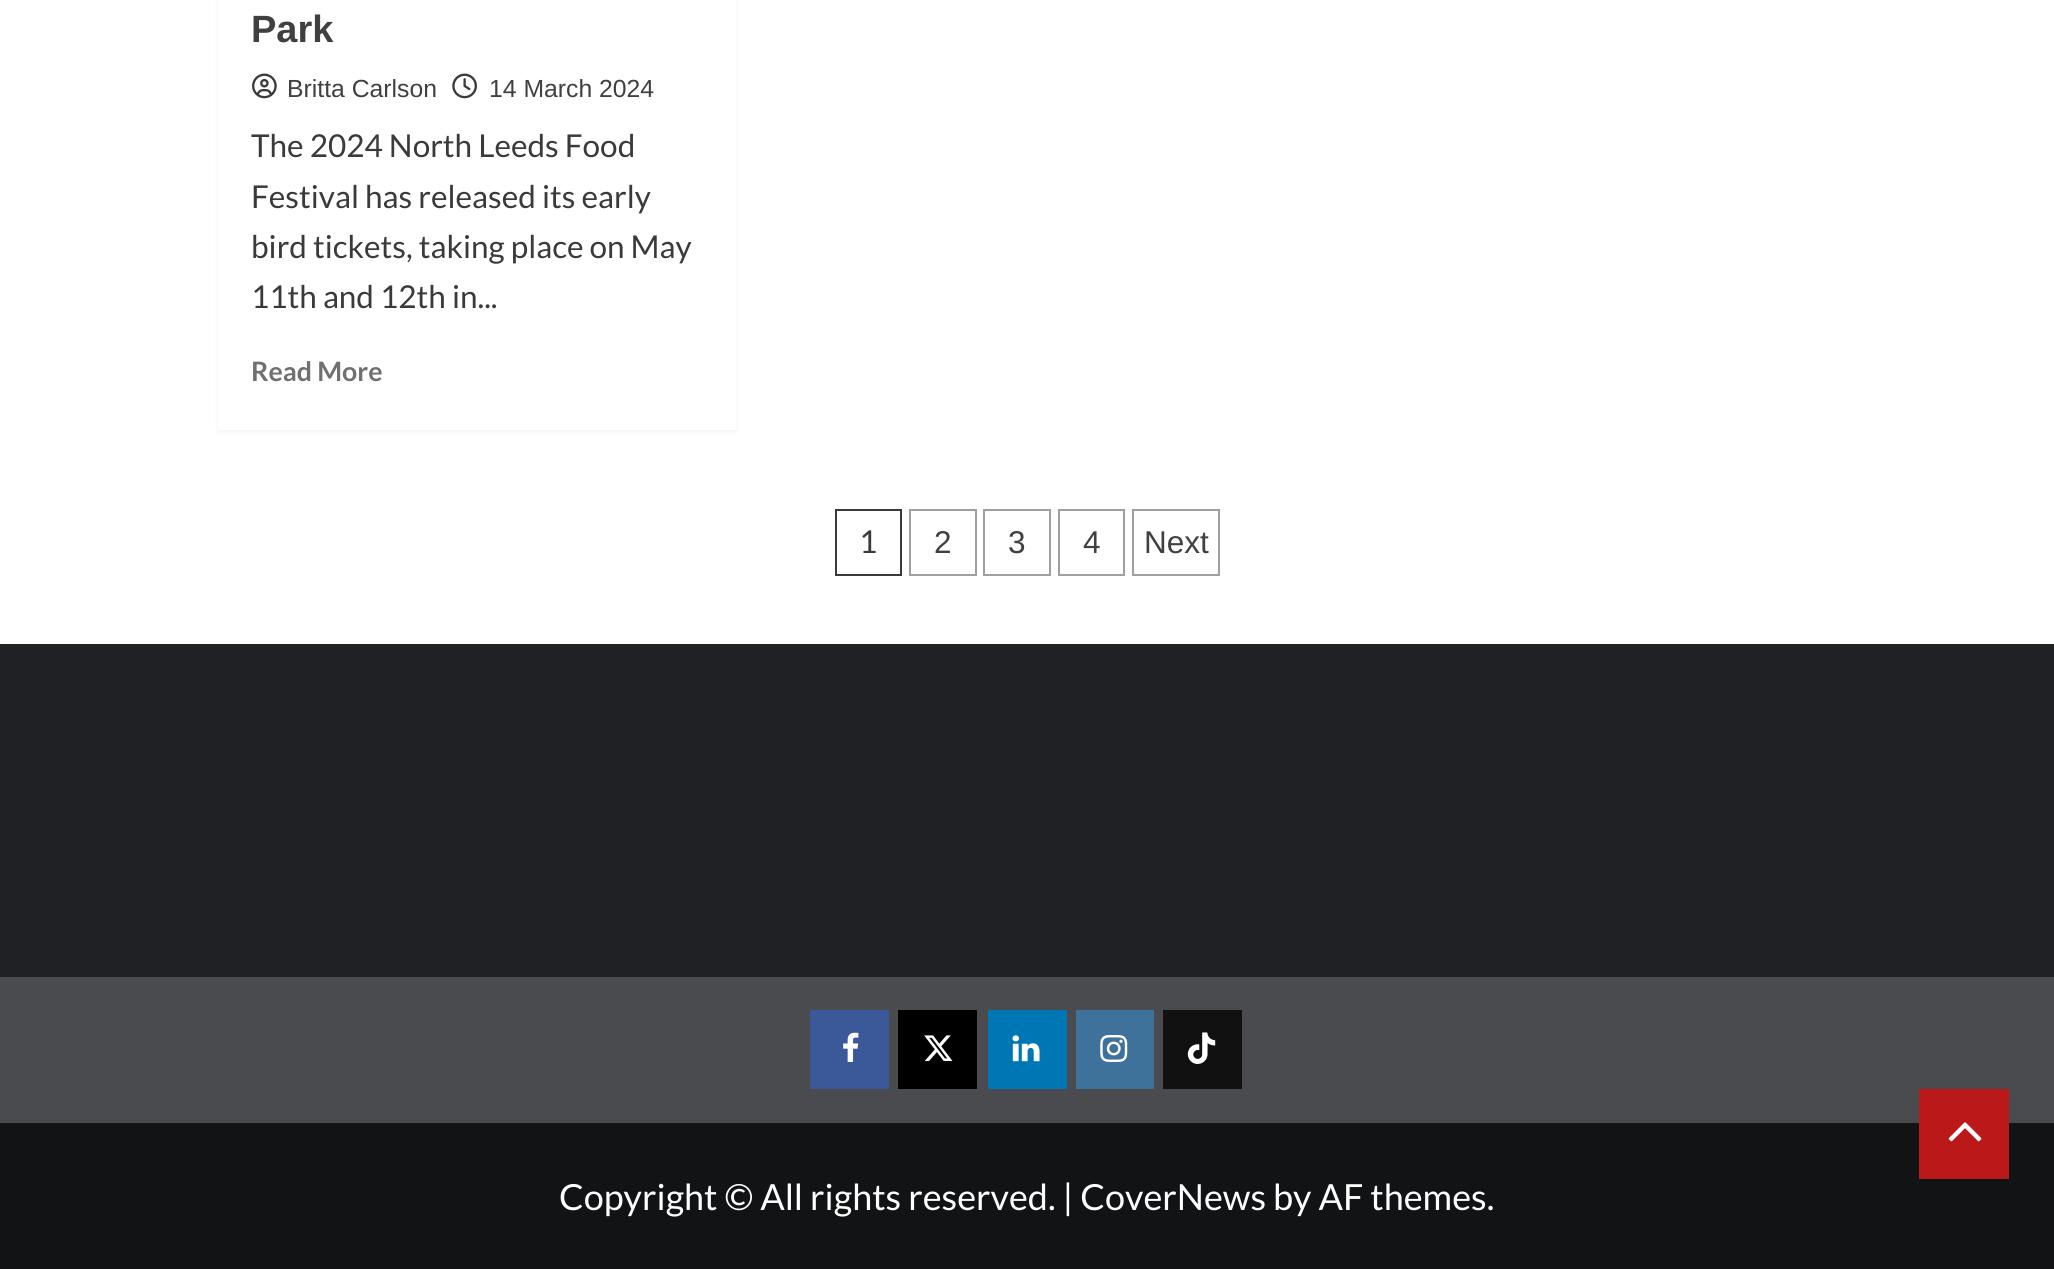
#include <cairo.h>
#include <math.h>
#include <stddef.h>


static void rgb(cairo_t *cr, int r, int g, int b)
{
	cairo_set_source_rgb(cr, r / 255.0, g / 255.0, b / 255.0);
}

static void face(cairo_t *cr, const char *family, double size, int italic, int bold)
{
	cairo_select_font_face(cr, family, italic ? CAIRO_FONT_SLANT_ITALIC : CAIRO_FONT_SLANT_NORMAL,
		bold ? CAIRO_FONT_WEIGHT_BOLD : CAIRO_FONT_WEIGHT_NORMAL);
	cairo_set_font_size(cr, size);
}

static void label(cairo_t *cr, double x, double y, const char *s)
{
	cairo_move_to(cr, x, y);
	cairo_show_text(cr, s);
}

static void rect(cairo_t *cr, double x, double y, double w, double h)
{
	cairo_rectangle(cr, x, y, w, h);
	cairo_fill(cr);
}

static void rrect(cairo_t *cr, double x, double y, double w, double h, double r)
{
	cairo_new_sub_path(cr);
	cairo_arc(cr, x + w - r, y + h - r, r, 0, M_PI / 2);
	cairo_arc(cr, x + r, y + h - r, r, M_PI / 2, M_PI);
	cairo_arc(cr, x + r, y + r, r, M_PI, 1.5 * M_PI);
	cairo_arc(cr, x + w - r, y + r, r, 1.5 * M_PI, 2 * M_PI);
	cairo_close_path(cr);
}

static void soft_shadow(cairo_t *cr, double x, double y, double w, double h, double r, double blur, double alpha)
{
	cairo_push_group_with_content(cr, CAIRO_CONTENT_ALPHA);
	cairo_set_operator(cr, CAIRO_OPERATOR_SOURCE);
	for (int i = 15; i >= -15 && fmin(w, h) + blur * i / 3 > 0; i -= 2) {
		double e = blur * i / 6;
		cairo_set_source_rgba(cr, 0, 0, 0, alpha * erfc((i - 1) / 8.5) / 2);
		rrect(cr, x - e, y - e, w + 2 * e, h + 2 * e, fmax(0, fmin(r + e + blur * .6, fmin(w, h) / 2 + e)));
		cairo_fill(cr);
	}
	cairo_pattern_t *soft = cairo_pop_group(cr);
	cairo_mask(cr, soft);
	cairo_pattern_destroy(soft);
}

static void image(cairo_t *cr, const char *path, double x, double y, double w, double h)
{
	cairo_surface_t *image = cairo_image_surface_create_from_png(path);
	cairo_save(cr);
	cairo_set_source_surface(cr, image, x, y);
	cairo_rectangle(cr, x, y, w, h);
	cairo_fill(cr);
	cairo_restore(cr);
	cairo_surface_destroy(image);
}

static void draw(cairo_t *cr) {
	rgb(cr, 255, 255, 255);
	cairo_paint(cr);
	rgb(cr, 0, 0, 0);
	soft_shadow(cr, 218, -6, 518, 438, 0, 2, 0.05);
	rgb(cr, 255, 255, 255);
	rect(cr, 218, 0, 518, 430);
	face(cr, "Liberation Sans", 38, 0, 1);
	rgb(cr, 64, 64, 64);
	label(cr, 251, 42, "Park");
	image(cr, "image0.png", 252, 73, 25, 26);
	face(cr, "Liberation Sans", 24.75, 0, 0);
	label(cr, 287, 97, "Britta Carlson");
	image(cr, "image1.png", 452, 73, 25, 26);
	label(cr, 489, 97, "14 March 2024");
	face(cr, "Lato", 31.5, 0, 0);
	rgb(cr, 58, 58, 58);
	label(cr, 251, 157, "The 2024 North Leeds Food");
	label(cr, 251, 208, "Festival has released its early");
	label(cr, 251, 258, "bird tickets, taking place on May");
	label(cr, 251, 308, "11th and 12th in...");
	face(cr, "Lato", 26.75, 0, 1);
	rgb(cr, 112, 112, 112);
	label(cr, 251, 381, "Read More");
	cairo_rectangle(cr, 836, 510, 65, 65);
	rgb(cr, 58, 58, 58);
	cairo_stroke(cr);
	face(cr, "Lato", 31.5, 0, 0);
	label(cr, 859, 553, "1");
	cairo_rectangle(cr, 910, 510, 66, 65);
	rgb(cr, 160, 160, 160);
	cairo_stroke(cr);
	face(cr, "Liberation Sans", 31.5, 0, 0);
	rgb(cr, 64, 64, 64);
	label(cr, 934, 553, "2");
	cairo_rectangle(cr, 984, 510, 66, 65);
	rgb(cr, 160, 160, 160);
	cairo_stroke(cr);
	rgb(cr, 64, 64, 64);
	label(cr, 1008, 553, "3");
	cairo_rectangle(cr, 1059, 510, 65, 65);
	rgb(cr, 160, 160, 160);
	cairo_stroke(cr);
	rgb(cr, 64, 64, 64);
	label(cr, 1083, 553, "4");
	cairo_rectangle(cr, 1133, 510, 86, 65);
	rgb(cr, 160, 160, 160);
	cairo_stroke(cr);
	rgb(cr, 64, 64, 64);
	label(cr, 1144, 553, "Next");
	rgb(cr, 31, 33, 37);
	rect(cr, 0, 644, 2054, 333);
	rgb(cr, 73, 75, 78);
	rect(cr, 0, 977, 2054, 146);
	rgb(cr, 59, 89, 153);
	rect(cr, 810, 1010, 79, 79);
	image(cr, "image2.png", 843, 1032, 16, 30);
	rgb(cr, 0, 0, 0);
	rect(cr, 898, 1010, 79, 79);
	image(cr, "image3.png", 924, 1035, 29, 26);
	rgb(cr, 0, 119, 181);
	rect(cr, 988, 1010, 79, 79);
	image(cr, "image4.png", 1012, 1035, 28, 27);
	rgb(cr, 63, 114, 155);
	rect(cr, 1076, 1010, 78, 79);
	image(cr, "image5.png", 1100, 1035, 28, 27);
	rgb(cr, 17, 17, 17);
	rect(cr, 1163, 1010, 79, 79);
	image(cr, "image6.png", 1187, 1032, 29, 32);
	rgb(cr, 18, 19, 20);
	rect(cr, 0, 1123, 2054, 146);
	face(cr, "Lato", 36, 0, 0);
	rgb(cr, 255, 255, 255);
	label(cr, 559, 1210, "Copyright © All rights reserved. | CoverNews by AF themes.");
	rgb(cr, 187, 25, 25);
	rect(cr, 1919, 1089, 90, 90);
	image(cr, "image7.png", 1948, 1122, 34, 20);
}

int main(void) {
	cairo_surface_t *surface = cairo_image_surface_create(CAIRO_FORMAT_RGB24, 2054, 1269);
	cairo_t *cr = cairo_create(surface);
	cairo_font_options_t *options = cairo_font_options_create();
	cairo_font_options_set_hint_metrics(options, CAIRO_HINT_METRICS_OFF);
	cairo_font_options_set_hint_style(options, CAIRO_HINT_STYLE_NONE);
	cairo_set_font_options(cr, options);
	cairo_set_miter_limit(cr, 4);
	draw(cr);
	cairo_surface_write_to_png(surface, "render.png");
	cairo_font_options_destroy(options);
	cairo_destroy(cr);
	cairo_surface_destroy(surface);
	return 0;
}
